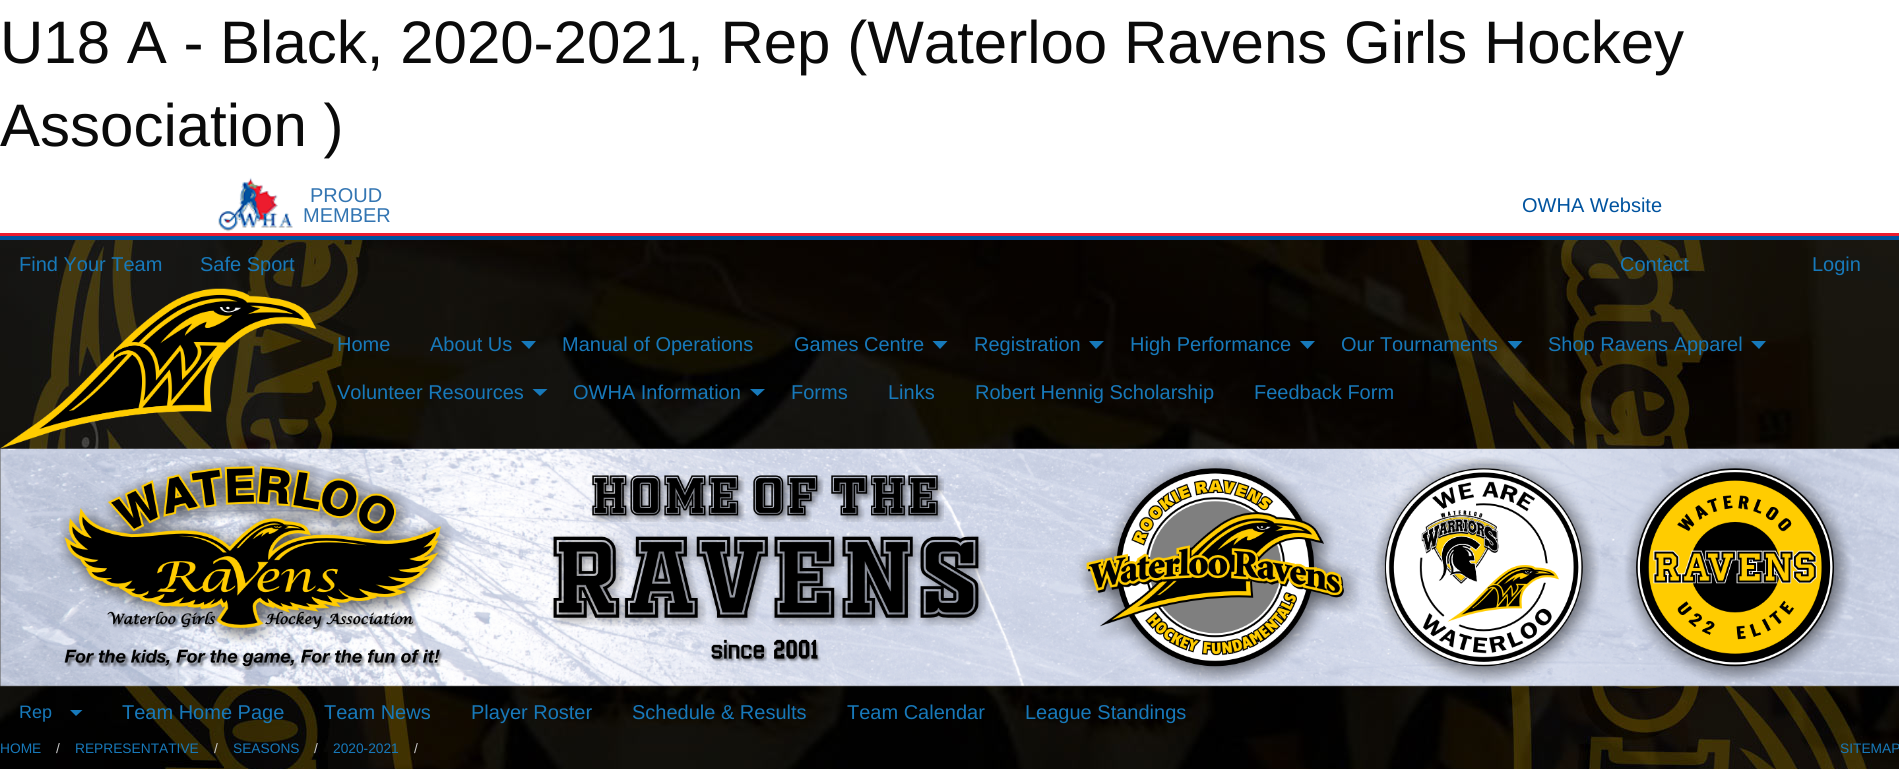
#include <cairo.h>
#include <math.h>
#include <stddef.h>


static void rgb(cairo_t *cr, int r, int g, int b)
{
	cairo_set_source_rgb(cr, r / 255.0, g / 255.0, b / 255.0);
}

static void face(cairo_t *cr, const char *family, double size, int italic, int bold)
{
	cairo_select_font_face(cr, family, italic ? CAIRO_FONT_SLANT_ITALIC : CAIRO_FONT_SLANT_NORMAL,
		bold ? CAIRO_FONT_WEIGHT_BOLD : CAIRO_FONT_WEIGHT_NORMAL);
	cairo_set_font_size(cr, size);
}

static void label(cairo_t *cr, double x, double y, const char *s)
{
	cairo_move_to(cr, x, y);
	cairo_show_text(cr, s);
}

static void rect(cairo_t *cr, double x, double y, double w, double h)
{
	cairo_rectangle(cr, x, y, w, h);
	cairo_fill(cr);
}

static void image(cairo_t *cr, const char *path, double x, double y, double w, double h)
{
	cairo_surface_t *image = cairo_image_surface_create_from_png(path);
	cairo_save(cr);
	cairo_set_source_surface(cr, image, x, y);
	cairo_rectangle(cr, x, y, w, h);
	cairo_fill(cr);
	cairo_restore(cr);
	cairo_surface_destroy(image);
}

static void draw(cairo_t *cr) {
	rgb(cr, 255, 255, 255);
	cairo_paint(cr);
	face(cr, "Liberation Sans", 60, 0, 0);
	rgb(cr, 10, 10, 10);
	label(cr, 0, 63, "U18 A - Black, 2020-2021, Rep (Waterloo Ravens Girls Hockey");
	label(cr, 0, 146, "Association )");
	image(cr, "image0.png", 218, 177, 75, 55);
	face(cr, "Liberation Sans", 20, 0, 0);
	rgb(cr, 51, 117, 178);
	label(cr, 310, 202, "PROUD");
	label(cr, 303, 222, "MEMBER");
	rgb(cr, 0, 83, 159);
	label(cr, 1522, 212, "OWHA Website");
	rgb(cr, 237, 27, 45);
	rect(cr, 0, 233, 1899, 3);
	rgb(cr, 0, 83, 159);
	rect(cr, 0, 236, 1899, 4);
	image(cr, "image1.png", 0, 240, 1899, 529);
	rgb(cr, 23, 121, 186);
	label(cr, 19, 271, "Find Your Team");
	label(cr, 200, 271, "Safe Sport");
	label(cr, 1620, 271, "Contact");
	label(cr, 1812, 271, "Login");
	image(cr, "image2.png", 0, 288, 317, 161);
	label(cr, 337, 351, "Home");
	label(cr, 430, 351, "About Us");
	cairo_new_path(cr);
	cairo_move_to(cr, 521, 341);
	cairo_line_to(cr, 536, 341);
	cairo_line_to(cr, 529, 349);
	cairo_close_path(cr);
	cairo_fill(cr);
	label(cr, 562, 351, "Manual of Operations");
	label(cr, 794, 351, "Games Centre");
	cairo_new_path(cr);
	cairo_move_to(cr, 932.5, 341);
	cairo_line_to(cr, 947.5, 341);
	cairo_line_to(cr, 940, 349);
	cairo_close_path(cr);
	cairo_fill(cr);
	label(cr, 974, 351, "Registration");
	cairo_new_path(cr);
	cairo_move_to(cr, 1089, 341);
	cairo_line_to(cr, 1104, 341);
	cairo_line_to(cr, 1096, 349);
	cairo_close_path(cr);
	cairo_fill(cr);
	label(cr, 1130, 351, "High Performance");
	cairo_new_path(cr);
	cairo_move_to(cr, 1300, 341);
	cairo_line_to(cr, 1315, 341);
	cairo_line_to(cr, 1307.5, 349);
	cairo_close_path(cr);
	cairo_fill(cr);
	label(cr, 1341, 351, "Our Tournaments");
	cairo_new_path(cr);
	cairo_move_to(cr, 1507.5, 341);
	cairo_line_to(cr, 1522.5, 341);
	cairo_line_to(cr, 1515, 349);
	cairo_close_path(cr);
	cairo_fill(cr);
	label(cr, 1548, 351, "Shop Ravens Apparel");
	cairo_new_path(cr);
	cairo_move_to(cr, 1751, 341);
	cairo_line_to(cr, 1766, 341);
	cairo_line_to(cr, 1759, 349);
	cairo_close_path(cr);
	cairo_fill(cr);
	label(cr, 337, 399, "Volunteer Resources");
	cairo_new_path(cr);
	cairo_move_to(cr, 532.5, 389);
	cairo_line_to(cr, 547.5, 389);
	cairo_line_to(cr, 540, 396);
	cairo_close_path(cr);
	cairo_fill(cr);
	label(cr, 573, 399, "OWHA Information");
	cairo_new_path(cr);
	cairo_move_to(cr, 750, 389);
	cairo_line_to(cr, 765, 389);
	cairo_line_to(cr, 757.5, 396);
	cairo_close_path(cr);
	cairo_fill(cr);
	label(cr, 791, 399, "Forms");
	label(cr, 888, 399, "Links");
	label(cr, 975, 399, "Robert Hennig Scholarship");
	label(cr, 1254, 399, "Feedback Form");
	image(cr, "image3.png", 0, 448, 1899, 239);
	face(cr, "Liberation Sans", 18, 0, 0);
	label(cr, 19, 718, "Rep");
	cairo_new_path(cr);
	cairo_move_to(cr, 70, 710);
	cairo_line_to(cr, 82.5, 710);
	cairo_line_to(cr, 76, 716);
	cairo_close_path(cr);
	cairo_fill(cr);
	face(cr, "Liberation Sans", 20, 0, 0);
	label(cr, 122, 719, "Team Home Page");
	label(cr, 324, 719, "Team News");
	label(cr, 471, 719, "Player Roster");
	label(cr, 632, 719, "Schedule & Results");
	label(cr, 847, 719, "Team Calendar");
	label(cr, 1025, 719, "League Standings");
	face(cr, "Liberation Sans", 13.75, 0, 0);
	label(cr, 0, 753, "HOME");
	rgb(cr, 202, 202, 202);
	label(cr, 56, 753, "/");
	rgb(cr, 23, 121, 186);
	label(cr, 75, 753, "REPRESENTATIVE");
	rgb(cr, 202, 202, 202);
	label(cr, 214, 753, "/");
	rgb(cr, 23, 121, 186);
	label(cr, 233, 753, "SEASONS");
	rgb(cr, 202, 202, 202);
	label(cr, 314, 753, "/");
	rgb(cr, 23, 121, 186);
	label(cr, 333, 753, "2020-2021");
	rgb(cr, 202, 202, 202);
	label(cr, 414, 753, "/");
	rgb(cr, 23, 121, 186);
	label(cr, 1840, 753, "SITEMAP");
}

int main(void) {
	cairo_surface_t *surface = cairo_image_surface_create(CAIRO_FORMAT_RGB24, 1899, 769);
	cairo_t *cr = cairo_create(surface);
	cairo_font_options_t *options = cairo_font_options_create();
	cairo_font_options_set_hint_metrics(options, CAIRO_HINT_METRICS_OFF);
	cairo_font_options_set_hint_style(options, CAIRO_HINT_STYLE_NONE);
	cairo_set_font_options(cr, options);
	cairo_set_miter_limit(cr, 4);
	draw(cr);
	cairo_surface_write_to_png(surface, "render.png");
	cairo_font_options_destroy(options);
	cairo_destroy(cr);
	cairo_surface_destroy(surface);
	return 0;
}
